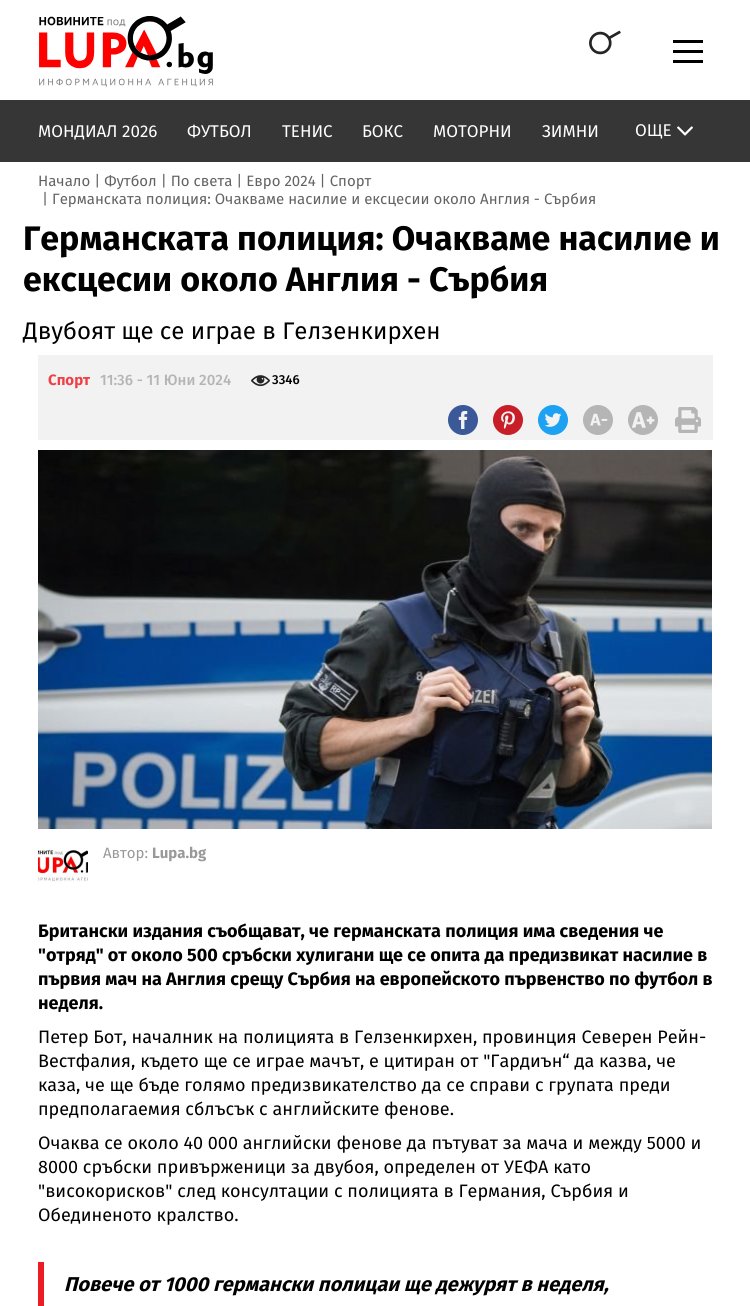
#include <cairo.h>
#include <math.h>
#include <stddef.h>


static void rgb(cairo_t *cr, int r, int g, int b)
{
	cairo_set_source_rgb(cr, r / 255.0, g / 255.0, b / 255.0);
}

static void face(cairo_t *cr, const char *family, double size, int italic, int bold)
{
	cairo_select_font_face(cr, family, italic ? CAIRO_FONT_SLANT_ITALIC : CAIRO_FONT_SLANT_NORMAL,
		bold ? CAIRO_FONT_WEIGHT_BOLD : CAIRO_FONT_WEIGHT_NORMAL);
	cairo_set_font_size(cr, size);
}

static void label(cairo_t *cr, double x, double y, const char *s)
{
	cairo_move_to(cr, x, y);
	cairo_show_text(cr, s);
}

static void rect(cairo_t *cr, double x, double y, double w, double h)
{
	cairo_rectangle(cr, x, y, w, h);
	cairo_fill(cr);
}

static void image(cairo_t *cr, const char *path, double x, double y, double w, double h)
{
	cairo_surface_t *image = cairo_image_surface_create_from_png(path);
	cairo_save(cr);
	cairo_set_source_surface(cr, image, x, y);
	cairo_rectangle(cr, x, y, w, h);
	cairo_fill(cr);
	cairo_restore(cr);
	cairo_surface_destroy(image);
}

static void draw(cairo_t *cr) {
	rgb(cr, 255, 255, 255);
	cairo_paint(cr);
	image(cr, "image0.png", 39, 16, 174, 71);
	image(cr, "image1.png", 589, 30, 32, 25);
	rgb(cr, 0, 0, 0);
	rect(cr, 673, 40, 30, 3);
	rect(cr, 673, 50, 30, 3);
	rect(cr, 673, 60, 30, 3);
	rgb(cr, 54, 54, 54);
	rect(cr, 0, 100, 750, 62);
	face(cr, "Fira Sans", 17, 0, 0);
	rgb(cr, 255, 255, 255);
	label(cr, 38, 137, "МОНДИАЛ 2026");
	label(cr, 187, 137, "ФУТБОЛ");
	label(cr, 282, 137, "ТЕНИС");
	label(cr, 362, 137, "БОКС");
	label(cr, 433, 137, "МОТОРНИ");
	label(cr, 542, 137, "ЗИМНИ");
	image(cr, "image2.png", 677, 126, 16, 10);
	label(cr, 635, 136, "ОЩЕ");
	face(cr, "Fira Sans", 15, 0, 0);
	rgb(cr, 99, 99, 99);
	label(cr, 38, 186, "Начало | Футбол | По света | Евро 2024 | Спорт");
	label(cr, 42, 204, "| Германската полиция: Очакваме насилие и ексцесии около Англия - Сърбия");
	face(cr, "Fira Sans", 34, 0, 1);
	rgb(cr, 0, 0, 0);
	label(cr, 23, 250, "Германската полиция: Очакваме насилие и");
	label(cr, 23, 291, "ексцесии около Англия - Сърбия");
	face(cr, "Fira Sans", 24, 0, 0);
	label(cr, 23, 339, "Двубоят ще се играе в Гелзенкирхен");
	rgb(cr, 242, 242, 242);
	rect(cr, 38, 355, 675, 85);
	face(cr, "Fira Sans", 15, 0, 1);
	rgb(cr, 237, 64, 71);
	label(cr, 48, 385, "Спорт");
	face(cr, "Fira Sans Medium", 15, 0, 0);
	rgb(cr, 181, 181, 181);
	label(cr, 100, 385, "11:36 - 11 Юни 2024");
	image(cr, "image3.png", 251, 375, 19, 12);
	face(cr, "Fira Sans Medium", 13, 0, 0);
	rgb(cr, 0, 0, 0);
	label(cr, 272, 384, "3346");
	image(cr, "image4.png", 448, 405, 30, 30);
	image(cr, "image5.png", 493, 405, 30, 30);
	image(cr, "image6.png", 538, 405, 30, 30);
	image(cr, "image7.png", 583, 405, 30, 30);
	image(cr, "image8.png", 628, 405, 30, 30);
	image(cr, "image9.png", 675, 407, 26, 26);
	image(cr, "image10.png", 38, 450, 674, 379);
	image(cr, "image11.png", 38, 850, 50, 32);
	face(cr, "Fira Sans", 15, 0, 0);
	rgb(cr, 153, 153, 153);
	label(cr, 103, 858, "Автор:");
	face(cr, "Fira Sans", 15, 0, 1);
	label(cr, 152, 858, "Lupa.bg");
	face(cr, "Fira Sans", 18, 0, 1);
	rgb(cr, 0, 0, 0);
	label(cr, 38, 937, "Британски издания съобщават, че германската полиция има сведения че");
	label(cr, 38, 961, "\"отряд\" от около 500 сръбски хулигани ще се опита да предизвикат насилие в");
	label(cr, 38, 985, "първия мач на Англия срещу Сърбия на европейското първенство по футбол в");
	label(cr, 38, 1009, "неделя.");
	face(cr, "Fira Sans", 18, 0, 0);
	label(cr, 38, 1043, "Петер Бот, началник на полицията в Гелзенкирхен, провинция Северен Рейн-");
	label(cr, 38, 1067, "Вестфалия, където ще се играе мачът, е цитиран от \"Гардиън“ да казва, че");
	label(cr, 38, 1091, "каза, че ще бъде голямо предизвикателство да се справи с групата преди");
	label(cr, 38, 1115, "предполагаемия сблъсък с английските фенове.");
	label(cr, 38, 1149, "Очаква се около 40 000 английски фенове да пътуват за мача и между 5000 и");
	label(cr, 38, 1173, "8000 сръбски привърженици за двубоя, определен от УЕФА като");
	label(cr, 38, 1197, "\"високорисков\" след консултации с полицията в Германия, Сърбия и");
	label(cr, 38, 1221, "Обединеното кралство.");
	rgb(cr, 237, 28, 36);
	rect(cr, 38, 1262, 6, 44);
	face(cr, "Fira Sans", 20, 1, 1);
	rgb(cr, 0, 0, 0);
	label(cr, 64, 1291, "Повече от 1000 германски полицаи ще дежурят в неделя,");
}

int main(void) {
	cairo_surface_t *surface = cairo_image_surface_create(CAIRO_FORMAT_RGB24, 750, 1306);
	cairo_t *cr = cairo_create(surface);
	cairo_font_options_t *options = cairo_font_options_create();
	cairo_font_options_set_hint_metrics(options, CAIRO_HINT_METRICS_OFF);
	cairo_font_options_set_hint_style(options, CAIRO_HINT_STYLE_NONE);
	cairo_set_font_options(cr, options);
	cairo_set_miter_limit(cr, 4);
	draw(cr);
	cairo_surface_write_to_png(surface, "render.png");
	cairo_font_options_destroy(options);
	cairo_destroy(cr);
	cairo_surface_destroy(surface);
	return 0;
}
